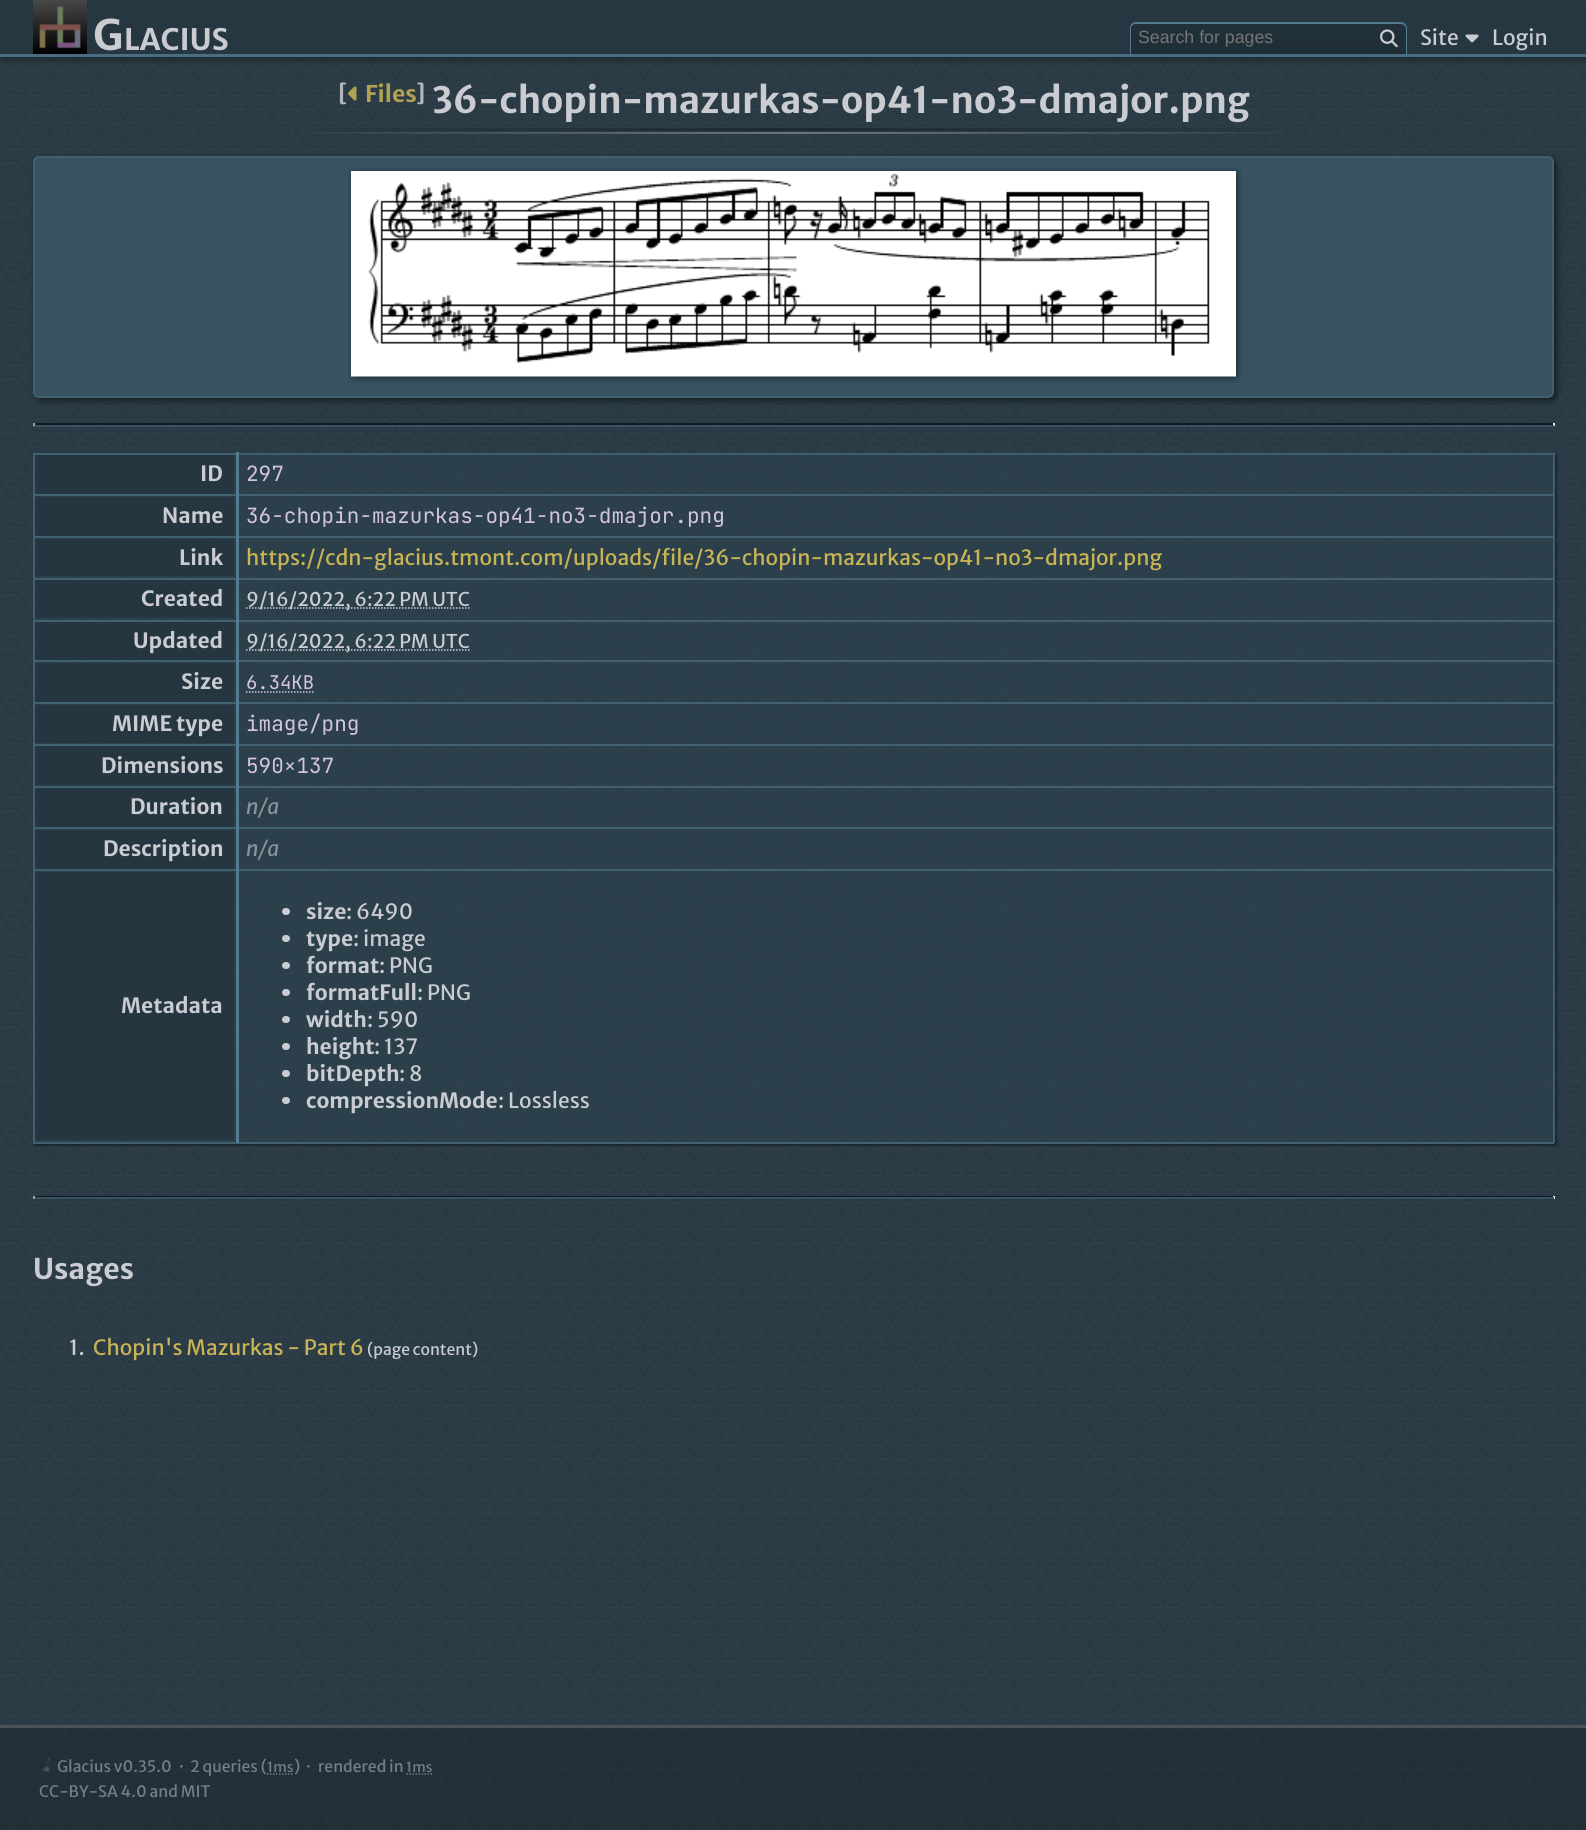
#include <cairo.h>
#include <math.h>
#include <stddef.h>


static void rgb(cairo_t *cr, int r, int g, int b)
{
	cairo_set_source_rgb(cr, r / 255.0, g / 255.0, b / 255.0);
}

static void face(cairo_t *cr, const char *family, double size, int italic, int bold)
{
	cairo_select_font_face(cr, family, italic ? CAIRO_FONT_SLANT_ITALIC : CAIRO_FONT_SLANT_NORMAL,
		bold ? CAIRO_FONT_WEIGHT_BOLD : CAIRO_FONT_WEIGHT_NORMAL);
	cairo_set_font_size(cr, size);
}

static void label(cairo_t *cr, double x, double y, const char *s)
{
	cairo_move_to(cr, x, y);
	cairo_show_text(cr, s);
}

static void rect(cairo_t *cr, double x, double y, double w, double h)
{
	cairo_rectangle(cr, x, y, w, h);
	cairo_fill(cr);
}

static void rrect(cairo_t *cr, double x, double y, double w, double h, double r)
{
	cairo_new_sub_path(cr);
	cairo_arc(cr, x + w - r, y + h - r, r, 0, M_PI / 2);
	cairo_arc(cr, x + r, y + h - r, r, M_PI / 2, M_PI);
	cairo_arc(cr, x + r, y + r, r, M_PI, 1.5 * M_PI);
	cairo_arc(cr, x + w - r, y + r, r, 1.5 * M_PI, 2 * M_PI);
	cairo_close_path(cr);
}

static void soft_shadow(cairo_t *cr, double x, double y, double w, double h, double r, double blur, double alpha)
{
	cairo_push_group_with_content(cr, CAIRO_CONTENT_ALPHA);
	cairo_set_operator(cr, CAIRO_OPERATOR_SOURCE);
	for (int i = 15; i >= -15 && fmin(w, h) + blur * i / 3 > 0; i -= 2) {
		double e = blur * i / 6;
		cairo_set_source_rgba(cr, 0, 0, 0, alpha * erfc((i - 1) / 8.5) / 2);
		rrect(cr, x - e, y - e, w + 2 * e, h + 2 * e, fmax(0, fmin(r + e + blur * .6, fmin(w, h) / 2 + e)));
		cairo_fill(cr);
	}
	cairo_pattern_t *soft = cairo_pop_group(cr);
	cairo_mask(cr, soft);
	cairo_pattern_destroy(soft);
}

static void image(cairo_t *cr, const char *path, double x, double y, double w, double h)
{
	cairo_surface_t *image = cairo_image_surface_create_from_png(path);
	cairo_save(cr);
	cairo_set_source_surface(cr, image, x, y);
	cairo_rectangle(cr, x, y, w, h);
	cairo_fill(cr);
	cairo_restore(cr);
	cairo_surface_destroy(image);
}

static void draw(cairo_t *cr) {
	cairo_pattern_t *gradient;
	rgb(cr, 46, 68, 80);
	cairo_paint(cr);
	image(cr, "image0.png", 0, 0, 1586, 1830);
	cairo_save(cr);
	cairo_rectangle(cr, 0, 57, 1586, 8);
	cairo_clip(cr);
	rgb(cr, 0, 0, 0);
	soft_shadow(cr, 0, 5, 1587, 57, 0, 2, 0.25);
	cairo_restore(cr);
	cairo_set_source_rgba(cr, 0.145, 0.212, 0.251, 0.75);
	rect(cr, 0, 0, 1586, 54);
	rgb(cr, 74, 109, 129);
	rect(cr, 0, 54, 1586, 3);
	image(cr, "image1.png", 33, 0, 54, 54);
	face(cr, "Merriweather Sans", 42, 0, 1);
	rgb(cr, 202, 204, 210);
	label(cr, 93, 50, "G");
	face(cr, "Merriweather Sans", 29.5, 0, 1);
	label(cr, 124, 50, "LACIUS");
	cairo_save(cr);
	cairo_new_path(cr);
	cairo_move_to(cr, 1136, 23);
	cairo_line_to(cr, 1401, 23);
	cairo_curve_to(cr, 1404.5, 23, 1407, 25.5, 1407, 29);
	cairo_line_to(cr, 1407, 54);
	cairo_line_to(cr, 1130, 54);
	cairo_line_to(cr, 1130, 29);
	cairo_curve_to(cr, 1130, 25.5, 1132.5, 23, 1136, 23);
	cairo_close_path(cr);
	cairo_clip(cr);
	gradient = cairo_pattern_create_linear(1268, 24, 1268, 54);
	cairo_pattern_add_color_stop_rgba(gradient, 0, 0.129, 0.192, 0.224, 1);
	cairo_pattern_add_color_stop_rgba(gradient, 1, 0.122, 0.18, 0.212, 1);
	cairo_set_source(cr, gradient);
	cairo_pattern_destroy(gradient);
	rect(cr, 1130, 24, 277, 30);
	cairo_restore(cr);
	rgb(cr, 83, 123, 145);
	cairo_set_fill_rule(cr, CAIRO_FILL_RULE_EVEN_ODD);
	cairo_new_path(cr);
	cairo_move_to(cr, 1136, 22);
	cairo_line_to(cr, 1401, 22);
	cairo_curve_to(cr, 1404, 22, 1407, 25, 1407, 28);
	cairo_line_to(cr, 1407, 54);
	cairo_line_to(cr, 1130, 54);
	cairo_line_to(cr, 1130, 28);
	cairo_curve_to(cr, 1130, 25, 1132, 22, 1136, 22);
	cairo_close_path(cr);
	cairo_move_to(cr, 1136, 24);
	cairo_line_to(cr, 1401, 24);
	cairo_curve_to(cr, 1403, 24, 1406, 26, 1406, 28);
	cairo_line_to(cr, 1406, 54);
	cairo_line_to(cr, 1131, 54);
	cairo_line_to(cr, 1131, 28);
	cairo_curve_to(cr, 1131, 26, 1133, 24, 1136, 24);
	cairo_close_path(cr);
	cairo_fill(cr);
	face(cr, "Liberation Sans", 17.75, 0, 0);
	rgb(cr, 117, 117, 117);
	label(cr, 1138, 43, "Search for pages");
	image(cr, "image2.png", 1380, 29, 18, 19);
	face(cr, "Merriweather Sans", 21, 0, 0);
	rgb(cr, 202, 204, 210);
	label(cr, 1420, 45, "Site");
	image(cr, "image3.png", 1465, 34, 14, 9);
	label(cr, 1492, 45, "Login");
	face(cr, "Merriweather Sans", 23, 0, 1);
	rgb(cr, 178, 182, 189);
	label(cr, 338, 102, "[");
	image(cr, "image4.png", 348, 86, 9, 15);
	rgb(cr, 177, 162, 83);
	label(cr, 365, 102, "Files");
	rgb(cr, 178, 182, 189);
	label(cr, 416, 102, "]");
	face(cr, "Merriweather Sans", 36.25, 0, 1);
	rgb(cr, 202, 204, 210);
	label(cr, 432, 113, "36-chopin-mazurkas-op41-no3-dmajor.png");
	gradient = cairo_pattern_create_linear(33, 129, 1554, 129);
	cairo_pattern_add_color_stop_rgba(gradient, 0.15, 0.106, 0.157, 0.188, 0);
	cairo_pattern_add_color_stop_rgba(gradient, 0.5, 0.106, 0.157, 0.188, 0.9);
	cairo_pattern_add_color_stop_rgba(gradient, 0.85, 0.106, 0.157, 0.188, 0);
	cairo_set_source(cr, gradient);
	cairo_pattern_destroy(gradient);
	rect(cr, 324, 128, 938, 3);
	gradient = cairo_pattern_create_linear(33, 133, 1554, 133);
	cairo_pattern_add_color_stop_rgba(gradient, 0.15, 0.792, 0.8, 0.824, 0);
	cairo_pattern_add_color_stop_rgba(gradient, 0.5, 0.792, 0.8, 0.824, 0.4);
	cairo_pattern_add_color_stop_rgba(gradient, 0.85, 0.792, 0.8, 0.824, 0);
	cairo_set_source(cr, gradient);
	cairo_pattern_destroy(gradient);
	rect(cr, 290, 132, 1007, 2);
	rgb(cr, 0, 0, 0);
	soft_shadow(cr, 36, 159, 1521, 242, 6, 3, 0.5);
	rgb(cr, 55, 82, 96);
	rrect(cr, 34, 157, 1519, 240, 5);
	cairo_fill_preserve(cr);
	rgb(cr, 65, 96, 112);
	cairo_stroke(cr);
	image(cr, "image5.png", 348, 168, 894, 215);
	rgb(cr, 18, 27, 31);
	rect(cr, 33, 423, 1521, 2);
	rgb(cr, 238, 238, 238);
	rect(cr, 1553, 423, 2, 3);
	rgb(cr, 55, 82, 96);
	rect(cr, 33, 425, 1521, 2);
	rgb(cr, 159, 159, 159);
	rect(cr, 33, 423, 2, 3);
	cairo_save(cr);
	cairo_new_path(cr);
	cairo_move_to(cr, 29, 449);
	cairo_line_to(cr, 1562, 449);
	cairo_line_to(cr, 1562, 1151);
	cairo_line_to(cr, 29, 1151);
	cairo_close_path(cr);
	cairo_move_to(cr, 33, 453);
	cairo_line_to(cr, 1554, 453);
	cairo_line_to(cr, 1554, 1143);
	cairo_line_to(cr, 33, 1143);
	cairo_close_path(cr);
	cairo_clip(cr);
	rgb(cr, 0, 0, 0);
	soft_shadow(cr, 35, 455, 1521, 690, 0, 1.5, 0.6);
	cairo_restore(cr);
	cairo_set_source_rgba(cr, 0.18, 0.267, 0.314, 0.5);
	rect(cr, 35, 455, 1518, 687);
	rgb(cr, 37, 54, 64);
	rect(cr, 35, 455, 199, 39);
	rgb(cr, 65, 96, 112);
	rect(cr, 33, 453, 1521, 2);
	rect(cr, 33, 494, 1521, 2);
	rect(cr, 33, 536, 1521, 2);
	rect(cr, 33, 578, 1521, 2);
	rect(cr, 33, 620, 1521, 2);
	rect(cr, 33, 660, 1521, 2);
	rect(cr, 33, 702, 1521, 2);
	rect(cr, 33, 744, 1521, 2);
	rect(cr, 33, 786, 1521, 2);
	rect(cr, 33, 827, 1521, 2);
	rect(cr, 33, 869, 1521, 2);
	rect(cr, 1553, 869, 2, 274);
	rect(cr, 33, 1142, 1521, 2);
	rect(cr, 33, 869, 2, 274);
	rect(cr, 33, 827, 2, 43);
	rect(cr, 33, 786, 2, 42);
	rect(cr, 33, 744, 2, 44);
	rect(cr, 33, 702, 2, 44);
	rect(cr, 33, 660, 2, 44);
	rect(cr, 33, 620, 2, 42);
	rect(cr, 33, 578, 2, 43);
	rect(cr, 33, 536, 2, 43);
	rect(cr, 33, 494, 2, 43);
	rect(cr, 33, 453, 2, 42);
	face(cr, "Merriweather Sans", 21, 0, 1);
	rgb(cr, 202, 204, 210);
	label(cr, 200, 481, "ID");
	rgb(cr, 65, 96, 112);
	rect(cr, 1553, 827, 2, 43);
	rect(cr, 1553, 786, 2, 42);
	rect(cr, 1553, 744, 2, 44);
	rect(cr, 1553, 702, 2, 44);
	rect(cr, 1553, 660, 2, 44);
	rect(cr, 1553, 620, 2, 42);
	rect(cr, 1553, 578, 2, 43);
	rect(cr, 1553, 536, 2, 43);
	rect(cr, 1553, 494, 2, 43);
	rect(cr, 1553, 453, 2, 42);
	face(cr, "JetBrains Mono", 21, 0, 0);
	rgb(cr, 213, 196, 223);
	label(cr, 246, 481, "297");
	rgb(cr, 37, 54, 64);
	rect(cr, 35, 497, 199, 39);
	face(cr, "Merriweather Sans", 21, 0, 1);
	rgb(cr, 202, 204, 210);
	label(cr, 162, 523, "Name");
	face(cr, "JetBrains Mono", 21, 0, 0);
	rgb(cr, 213, 196, 223);
	label(cr, 246, 523, "36-chopin-mazurkas-op41-no3-dmajor.png");
	rgb(cr, 37, 54, 64);
	rect(cr, 35, 539, 199, 37);
	face(cr, "Merriweather Sans", 21, 0, 1);
	rgb(cr, 202, 204, 210);
	label(cr, 179, 565, "Link");
	face(cr, "Merriweather Sans", 21, 0, 0);
	rgb(cr, 201, 180, 85);
	label(cr, 246, 565, "https://cdn-glacius.tmont.com/uploads/file/36-chopin-mazurkas-op41-no3-dmajor.png");
	rgb(cr, 37, 54, 64);
	rect(cr, 35, 580, 199, 38);
	face(cr, "Merriweather Sans", 21, 0, 1);
	rgb(cr, 202, 204, 210);
	label(cr, 141, 606, "Created");
	cairo_new_path(cr);
	cairo_move_to(cr, 246, 608);
	cairo_line_to(cr, 469.5, 608);
	cairo_set_line_width(cr, 1.5);
	cairo_set_dash(cr, (double[]){1.5, 1.5}, 2, 0);
	cairo_stroke(cr);
	face(cr, "Merriweather Sans", 18.9, 0, 0);
	label(cr, 246, 606, "9/16/2022, 6:22 PM UTC");
	rgb(cr, 37, 54, 64);
	rect(cr, 35, 622, 199, 38);
	face(cr, "Merriweather Sans", 21, 0, 1);
	rgb(cr, 202, 204, 210);
	label(cr, 133, 648, "Updated");
	cairo_new_path(cr);
	cairo_move_to(cr, 246, 650);
	cairo_line_to(cr, 469.5, 650);
	cairo_stroke(cr);
	face(cr, "Merriweather Sans", 18.9, 0, 0);
	label(cr, 246, 648, "9/16/2022, 6:22 PM UTC");
	rgb(cr, 37, 54, 64);
	rect(cr, 35, 663, 199, 39);
	face(cr, "Merriweather Sans", 21, 0, 1);
	rgb(cr, 202, 204, 210);
	label(cr, 181, 689, "Size");
	face(cr, "JetBrains Mono", 18.9, 0, 0);
	rgb(cr, 213, 196, 223);
	label(cr, 246, 689, "6.34KB");
	cairo_new_path(cr);
	cairo_move_to(cr, 246, 692);
	cairo_line_to(cr, 314, 692);
	cairo_stroke(cr);
	rgb(cr, 37, 54, 64);
	rect(cr, 35, 705, 199, 38);
	face(cr, "Merriweather Sans", 21, 0, 1);
	rgb(cr, 202, 204, 210);
	label(cr, 112, 731, "MIME type");
	face(cr, "JetBrains Mono", 21, 0, 0);
	rgb(cr, 213, 196, 223);
	label(cr, 246, 731, "image/png");
	rgb(cr, 37, 54, 64);
	rect(cr, 35, 746, 199, 39);
	face(cr, "Merriweather Sans", 21, 0, 1);
	rgb(cr, 202, 204, 210);
	label(cr, 101, 773, "Dimensions");
	face(cr, "JetBrains Mono", 21, 0, 0);
	rgb(cr, 213, 196, 223);
	label(cr, 246, 773, "590×137");
	rgb(cr, 37, 54, 64);
	rect(cr, 35, 788, 199, 39);
	face(cr, "Merriweather Sans", 21, 0, 1);
	rgb(cr, 202, 204, 210);
	label(cr, 130, 814, "Duration");
	face(cr, "Merriweather Sans", 21, 1, 0);
	rgb(cr, 139, 148, 156);
	label(cr, 246, 814, "n/a");
	rgb(cr, 37, 54, 64);
	rect(cr, 35, 830, 199, 39);
	face(cr, "Merriweather Sans", 21, 0, 1);
	rgb(cr, 202, 204, 210);
	label(cr, 103, 856, "Description");
	face(cr, "Merriweather Sans", 21, 1, 0);
	rgb(cr, 139, 148, 156);
	label(cr, 246, 856, "n/a");
	rgb(cr, 37, 54, 64);
	rect(cr, 35, 872, 199, 268);
	rgb(cr, 83, 123, 145);
	rect(cr, 236, 452, 3, 691);
	face(cr, "Merriweather Sans", 21, 0, 1);
	rgb(cr, 202, 204, 210);
	label(cr, 121, 1013, "Metadata");
	rrect(cr, 282, 908, 8, 7, 3.5);
	cairo_fill(cr);
	label(cr, 306, 919, "size");
	face(cr, "Merriweather Sans", 21, 0, 0);
	label(cr, 346, 919, ": 6490");
	rrect(cr, 282, 935, 8, 7, 3.5);
	cairo_fill(cr);
	face(cr, "Merriweather Sans", 21, 0, 1);
	label(cr, 306, 946, "type");
	face(cr, "Merriweather Sans", 21, 0, 0);
	label(cr, 353, 946, ": image");
	rrect(cr, 282, 962, 8, 7, 3.5);
	cairo_fill(cr);
	face(cr, "Merriweather Sans", 21, 0, 1);
	label(cr, 306, 973, "format");
	face(cr, "Merriweather Sans", 21, 0, 0);
	label(cr, 379, 973, ": PNG");
	rrect(cr, 282, 989, 8, 7, 3.5);
	cairo_fill(cr);
	face(cr, "Merriweather Sans", 21, 0, 1);
	label(cr, 306, 1000, "formatFull");
	face(cr, "Merriweather Sans", 21, 0, 0);
	label(cr, 417, 1000, ": PNG");
	rrect(cr, 282, 1016, 8, 7, 3.5);
	cairo_fill(cr);
	face(cr, "Merriweather Sans", 21, 0, 1);
	label(cr, 306, 1027, "width");
	face(cr, "Merriweather Sans", 21, 0, 0);
	label(cr, 367, 1027, ": 590");
	rrect(cr, 282, 1043, 8, 7, 3.5);
	cairo_fill(cr);
	face(cr, "Merriweather Sans", 21, 0, 1);
	label(cr, 306, 1054, "height");
	face(cr, "Merriweather Sans", 21, 0, 0);
	label(cr, 374, 1054, ": 137");
	rrect(cr, 282, 1070, 8, 7, 3.5);
	cairo_fill(cr);
	face(cr, "Merriweather Sans", 21, 0, 1);
	label(cr, 306, 1081, "bitDepth");
	face(cr, "Merriweather Sans", 21, 0, 0);
	label(cr, 399, 1081, ": 8");
	rrect(cr, 282, 1097, 8, 7, 3.5);
	cairo_fill(cr);
	face(cr, "Merriweather Sans", 21, 0, 1);
	label(cr, 306, 1108, "compressionMode");
	face(cr, "Merriweather Sans", 21, 0, 0);
	label(cr, 498, 1108, ": Lossless");
	rgb(cr, 18, 27, 31);
	rect(cr, 33, 1196, 1521, 1);
	rgb(cr, 238, 238, 238);
	rect(cr, 1553, 1196, 2, 3);
	rgb(cr, 55, 82, 96);
	rect(cr, 33, 1197, 1521, 2);
	rgb(cr, 159, 159, 159);
	rect(cr, 33, 1196, 2, 3);
	face(cr, "Merriweather Sans", 28.5, 0, 1);
	rgb(cr, 202, 204, 210);
	label(cr, 33, 1279, "Usages");
	face(cr, "Merriweather Sans", 21, 0, 0);
	label(cr, 69, 1355, "1.");
	rgb(cr, 201, 180, 85);
	label(cr, 93, 1355, "Chopin's Mazurkas - Part 6");
	face(cr, "Merriweather Sans", 15.75, 0, 0);
	rgb(cr, 202, 204, 210);
	label(cr, 367, 1355, "(page content)");
	cairo_set_source_rgba(cr, 0.043, 0.047, 0.051, 0.25);
	rect(cr, 0, 1725, 1586, 105);
	cairo_set_source_rgba(cr, 0.369, 0.404, 0.424, 0.65);
	rect(cr, 0, 1725, 1586, 3);
	image(cr, "image6.png", 42, 1757, 9, 15);
	rgb(cr, 119, 125, 136);
	label(cr, 57, 1772, "Glacius v0.35.0");
	label(cr, 179, 1772, "·");
	label(cr, 190, 1772, "2 queries (");
	face(cr, "Merriweather Sans", 14, 0, 0);
	label(cr, 267, 1772, "1ms");
	cairo_new_path(cr);
	cairo_move_to(cr, 267, 1774);
	cairo_line_to(cr, 293.5, 1774);
	cairo_set_source_rgba(cr, 0.576, 0.592, 0.639, 0.75);
	cairo_stroke(cr);
	face(cr, "Merriweather Sans", 15.75, 0, 0);
	rgb(cr, 119, 125, 136);
	label(cr, 294, 1772, ")");
	label(cr, 306, 1772, "·");
	label(cr, 318, 1772, "rendered in");
	face(cr, "Merriweather Sans", 14, 0, 0);
	label(cr, 406, 1772, "1ms");
	cairo_new_path(cr);
	cairo_move_to(cr, 406.5, 1774);
	cairo_line_to(cr, 433, 1774);
	cairo_set_source_rgba(cr, 0.576, 0.592, 0.639, 0.75);
	cairo_stroke(cr);
	face(cr, "Merriweather Sans", 15.75, 0, 0);
	rgb(cr, 119, 125, 136);
	label(cr, 39, 1797, "CC-BY-SA 4.0 and MIT");
}

int main(void) {
	cairo_surface_t *surface = cairo_image_surface_create(CAIRO_FORMAT_RGB24, 1586, 1830);
	cairo_t *cr = cairo_create(surface);
	cairo_font_options_t *options = cairo_font_options_create();
	cairo_font_options_set_hint_metrics(options, CAIRO_HINT_METRICS_OFF);
	cairo_font_options_set_hint_style(options, CAIRO_HINT_STYLE_NONE);
	cairo_set_font_options(cr, options);
	cairo_set_miter_limit(cr, 4);
	draw(cr);
	cairo_surface_write_to_png(surface, "render.png");
	cairo_font_options_destroy(options);
	cairo_destroy(cr);
	cairo_surface_destroy(surface);
	return 0;
}
